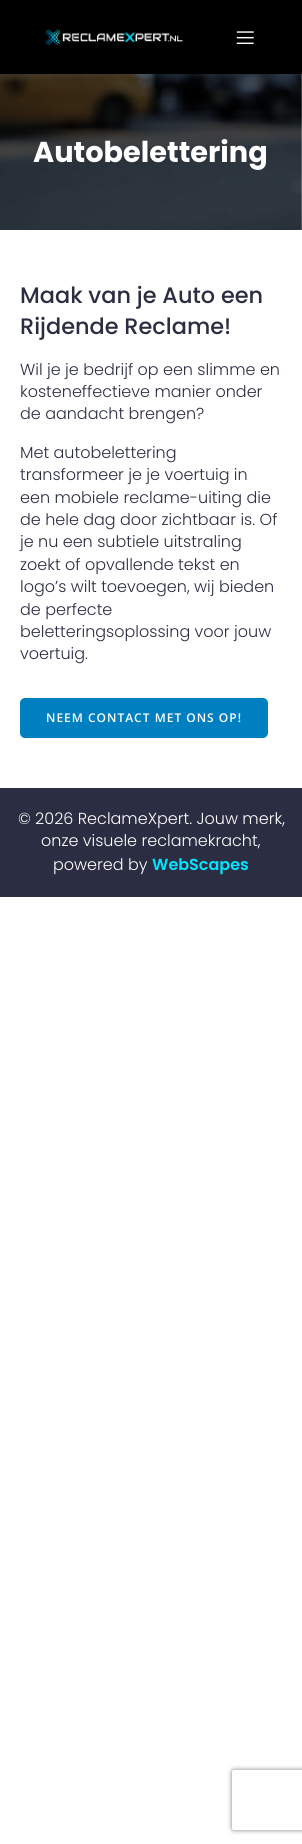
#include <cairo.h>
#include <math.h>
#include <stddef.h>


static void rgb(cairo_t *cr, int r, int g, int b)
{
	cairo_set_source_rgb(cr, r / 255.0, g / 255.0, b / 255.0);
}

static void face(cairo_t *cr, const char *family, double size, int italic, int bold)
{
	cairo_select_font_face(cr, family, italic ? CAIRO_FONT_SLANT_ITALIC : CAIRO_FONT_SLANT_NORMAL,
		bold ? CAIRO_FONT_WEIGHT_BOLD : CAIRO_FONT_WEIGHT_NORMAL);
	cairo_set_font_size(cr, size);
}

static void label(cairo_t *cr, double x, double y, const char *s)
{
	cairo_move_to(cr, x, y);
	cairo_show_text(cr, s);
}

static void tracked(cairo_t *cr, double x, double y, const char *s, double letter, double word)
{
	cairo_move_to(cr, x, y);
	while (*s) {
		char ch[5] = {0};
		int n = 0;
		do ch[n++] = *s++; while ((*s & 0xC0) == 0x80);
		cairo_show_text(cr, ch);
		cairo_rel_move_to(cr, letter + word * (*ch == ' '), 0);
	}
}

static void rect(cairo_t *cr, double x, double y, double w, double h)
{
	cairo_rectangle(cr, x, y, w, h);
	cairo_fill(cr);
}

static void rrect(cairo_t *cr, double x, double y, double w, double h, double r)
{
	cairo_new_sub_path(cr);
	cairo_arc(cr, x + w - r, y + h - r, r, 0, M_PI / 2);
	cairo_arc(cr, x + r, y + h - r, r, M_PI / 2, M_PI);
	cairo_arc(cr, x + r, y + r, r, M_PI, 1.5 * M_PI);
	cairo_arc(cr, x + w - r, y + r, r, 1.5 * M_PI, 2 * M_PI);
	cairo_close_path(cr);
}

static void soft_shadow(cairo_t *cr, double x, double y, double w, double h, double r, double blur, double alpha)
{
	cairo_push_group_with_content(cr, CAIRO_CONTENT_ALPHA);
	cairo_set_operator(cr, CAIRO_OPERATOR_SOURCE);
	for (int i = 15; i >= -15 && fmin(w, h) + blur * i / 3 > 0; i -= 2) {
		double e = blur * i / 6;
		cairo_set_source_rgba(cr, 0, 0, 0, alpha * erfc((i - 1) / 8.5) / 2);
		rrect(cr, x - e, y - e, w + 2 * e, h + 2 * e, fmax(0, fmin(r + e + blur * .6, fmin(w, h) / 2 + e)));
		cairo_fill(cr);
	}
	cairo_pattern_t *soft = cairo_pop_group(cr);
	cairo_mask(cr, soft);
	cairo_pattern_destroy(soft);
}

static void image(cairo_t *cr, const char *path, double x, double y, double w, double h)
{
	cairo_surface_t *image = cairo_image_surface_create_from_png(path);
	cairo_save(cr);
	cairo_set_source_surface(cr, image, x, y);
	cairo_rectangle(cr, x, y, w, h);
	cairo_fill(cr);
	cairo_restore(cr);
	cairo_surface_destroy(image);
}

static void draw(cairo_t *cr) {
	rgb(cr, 255, 255, 255);
	cairo_paint(cr);
	rgb(cr, 0, 0, 0);
	rect(cr, 0, 0, 302, 74);
	image(cr, "image0.png", 45, 29, 138, 16);
	image(cr, "image1.png", 236, 31, 18, 13);
	image(cr, "image2.png", 0, 74, 302, 156);
	face(cr, "Poppins", 28.75, 0, 1);
	rgb(cr, 255, 255, 255);
	label(cr, 33, 162, "Autobelettering");
	face(cr, "Poppins Medium", 22.4, 0, 0);
	rgb(cr, 43, 45, 66);
	label(cr, 20, 303, "Maak van je Auto een");
	label(cr, 20, 334, "Rijdende Reclame!");
	face(cr, "Poppins Light", 16, 0, 0);
	label(cr, 20, 375, "Wil je je bedrijf op een slimme en");
	label(cr, 20, 397, "kosteneffectieve manier onder");
	label(cr, 20, 419, "de aandacht brengen?");
	label(cr, 20, 458, "Met autobelettering");
	label(cr, 20, 480, "transformeer je je voertuig in");
	label(cr, 20, 503, "een mobiele reclame-uiting die");
	label(cr, 20, 525, "de hele dag door zichtbaar is. Of");
	label(cr, 20, 547, "je nu een subtiele uitstraling");
	label(cr, 20, 570, "zoekt of opvallende tekst en");
	label(cr, 20, 592, "logo’s wilt toevoegen, wij bieden");
	label(cr, 20, 615, "de perfecte");
	label(cr, 20, 637, "beletteringsoplossing voor jouw");
	label(cr, 20, 659, "voertuig.");
	rgb(cr, 0, 127, 193);
	rrect(cr, 21, 699, 246, 38, 4);
	cairo_fill_preserve(cr);
	cairo_stroke(cr);
	face(cr, "Open Sans SemiBold", 12, 0, 0);
	rgb(cr, 255, 255, 255);
	tracked(cr, 46, 722, "NEEM CONTACT MET ONS OP!", 1, 0);
	rgb(cr, 43, 45, 66);
	rect(cr, 0, 788, 302, 109);
	face(cr, "Poppins Light", 16, 0, 0);
	rgb(cr, 255, 255, 255);
	label(cr, 18, 824, "© 2026 ReclameXpert. Jouw merk,");
	label(cr, 41, 846, "onze visuele reclamekracht,");
	label(cr, 53, 870, "powered by");
	face(cr, "Poppins SemiBold", 16, 0, 0);
	rgb(cr, 3, 228, 255);
	label(cr, 152, 870, "WebScapes");
	cairo_save(cr);
	cairo_set_fill_rule(cr, CAIRO_FILL_RULE_EVEN_ODD);
	cairo_new_path(cr);
	cairo_move_to(cr, 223, 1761);
	cairo_line_to(cr, 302, 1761);
	cairo_line_to(cr, 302, 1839);
	cairo_line_to(cr, 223, 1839);
	cairo_close_path(cr);
	cairo_move_to(cr, 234, 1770);
	cairo_line_to(cr, 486, 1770);
	cairo_curve_to(cr, 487, 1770, 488, 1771, 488, 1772);
	cairo_line_to(cr, 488, 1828);
	cairo_curve_to(cr, 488, 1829, 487, 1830, 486, 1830);
	cairo_line_to(cr, 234, 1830);
	cairo_curve_to(cr, 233, 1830, 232, 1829, 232, 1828);
	cairo_line_to(cr, 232, 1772);
	cairo_curve_to(cr, 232, 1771, 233, 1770, 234, 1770);
	cairo_close_path(cr);
	cairo_clip(cr);
	rgb(cr, 128, 128, 128);
	soft_shadow(cr, 232, 1770, 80, 60, 2, 2.5, 1);
	cairo_restore(cr);
}

int main(void) {
	cairo_surface_t *surface = cairo_image_surface_create(CAIRO_FORMAT_RGB24, 302, 1844);
	cairo_t *cr = cairo_create(surface);
	cairo_font_options_t *options = cairo_font_options_create();
	cairo_font_options_set_hint_metrics(options, CAIRO_HINT_METRICS_OFF);
	cairo_font_options_set_hint_style(options, CAIRO_HINT_STYLE_NONE);
	cairo_set_font_options(cr, options);
	cairo_set_miter_limit(cr, 4);
	draw(cr);
	cairo_surface_write_to_png(surface, "render.png");
	cairo_font_options_destroy(options);
	cairo_destroy(cr);
	cairo_surface_destroy(surface);
	return 0;
}
